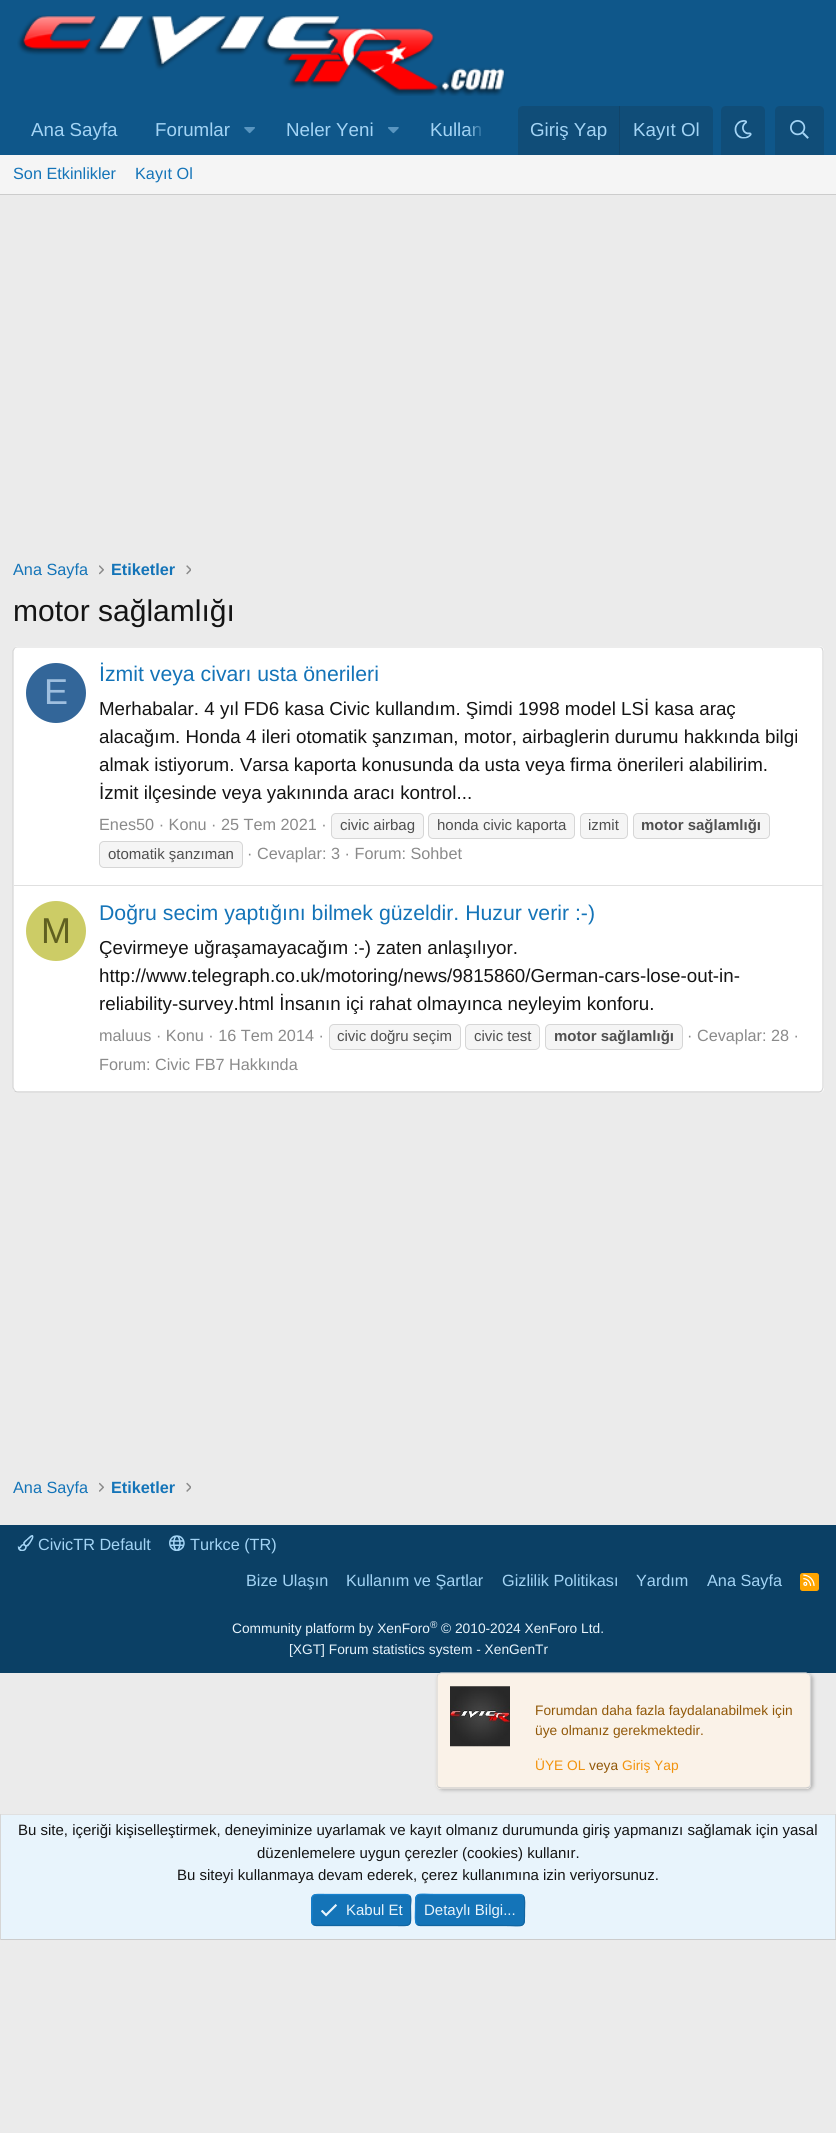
#include <cairo.h>
#include <math.h>
#include <stddef.h>


static void rgb(cairo_t *cr, int r, int g, int b)
{
	cairo_set_source_rgb(cr, r / 255.0, g / 255.0, b / 255.0);
}

static void face(cairo_t *cr, const char *family, double size, int italic, int bold)
{
	cairo_select_font_face(cr, family, italic ? CAIRO_FONT_SLANT_ITALIC : CAIRO_FONT_SLANT_NORMAL,
		bold ? CAIRO_FONT_WEIGHT_BOLD : CAIRO_FONT_WEIGHT_NORMAL);
	cairo_set_font_size(cr, size);
}

static void label(cairo_t *cr, double x, double y, const char *s)
{
	cairo_move_to(cr, x, y);
	cairo_show_text(cr, s);
}

static void rect(cairo_t *cr, double x, double y, double w, double h)
{
	cairo_rectangle(cr, x, y, w, h);
	cairo_fill(cr);
}

static void rrect(cairo_t *cr, double x, double y, double w, double h, double r)
{
	cairo_new_sub_path(cr);
	cairo_arc(cr, x + w - r, y + h - r, r, 0, M_PI / 2);
	cairo_arc(cr, x + r, y + h - r, r, M_PI / 2, M_PI);
	cairo_arc(cr, x + r, y + r, r, M_PI, 1.5 * M_PI);
	cairo_arc(cr, x + w - r, y + r, r, 1.5 * M_PI, 2 * M_PI);
	cairo_close_path(cr);
}

static void soft_shadow(cairo_t *cr, double x, double y, double w, double h, double r, double blur, double alpha)
{
	cairo_push_group_with_content(cr, CAIRO_CONTENT_ALPHA);
	cairo_set_operator(cr, CAIRO_OPERATOR_SOURCE);
	for (int i = 15; i >= -15 && fmin(w, h) + blur * i / 3 > 0; i -= 2) {
		double e = blur * i / 6;
		cairo_set_source_rgba(cr, 0, 0, 0, alpha * erfc((i - 1) / 8.5) / 2);
		rrect(cr, x - e, y - e, w + 2 * e, h + 2 * e, fmax(0, fmin(r + e + blur * .6, fmin(w, h) / 2 + e)));
		cairo_fill(cr);
	}
	cairo_pattern_t *soft = cairo_pop_group(cr);
	cairo_mask(cr, soft);
	cairo_pattern_destroy(soft);
}

static void image(cairo_t *cr, const char *path, double x, double y, double w, double h)
{
	cairo_surface_t *image = cairo_image_surface_create_from_png(path);
	cairo_save(cr);
	cairo_set_source_surface(cr, image, x, y);
	cairo_rectangle(cr, x, y, w, h);
	cairo_fill(cr);
	cairo_restore(cr);
	cairo_surface_destroy(image);
}

static void draw(cairo_t *cr) {
	cairo_pattern_t *gradient;
	rgb(cr, 235, 235, 235);
	cairo_paint(cr);
	rgb(cr, 15, 87, 138);
	rect(cr, 0, 0, 836, 155);
	image(cr, "image0.png", 17, 15, 488, 81);
	face(cr, "Liberation Sans", 18.75, 0, 0);
	rgb(cr, 163, 212, 245);
	label(cr, 31, 136, "Ana Sayfa");
	label(cr, 155, 136, "Forumlar");
	image(cr, "image1.png", 244, 127, 11, 7);
	label(cr, 286, 136, "Neler Yeni");
	image(cr, "image2.png", 388, 127, 11, 7);
	label(cr, 430, 136, "Kullan");
	gradient = cairo_pattern_create_linear(468, 131, 518, 131);
	cairo_pattern_add_color_stop_rgba(gradient, 0, 0.059, 0.341, 0.541, 0);
	cairo_pattern_add_color_stop_rgba(gradient, 0.33, 0.059, 0.341, 0.541, 1);
	cairo_set_source(cr, gradient);
	cairo_pattern_destroy(gradient);
	rect(cr, 468, 125, 13, 11);
	rgb(cr, 16, 77, 120);
	cairo_new_path(cr);
	cairo_move_to(cr, 523, 106);
	cairo_line_to(cr, 708, 106);
	cairo_curve_to(cr, 711, 106, 713, 108, 713, 111);
	cairo_line_to(cr, 713, 155);
	cairo_line_to(cr, 518, 155);
	cairo_line_to(cr, 518, 111);
	cairo_curve_to(cr, 518, 108, 520, 106, 523, 106);
	cairo_close_path(cr);
	cairo_fill(cr);
	rgb(cr, 163, 212, 245);
	label(cr, 530, 136, "Giriş Yap");
	rgb(cr, 17, 68, 105);
	rect(cr, 619, 106, 1, 49);
	rgb(cr, 163, 212, 245);
	label(cr, 633, 136, "Kayıt Ol");
	rgb(cr, 16, 77, 120);
	cairo_new_path(cr);
	cairo_move_to(cr, 726, 106);
	cairo_line_to(cr, 760, 106);
	cairo_curve_to(cr, 763, 106, 765, 108, 765, 111);
	cairo_line_to(cr, 765, 155);
	cairo_line_to(cr, 721, 155);
	cairo_line_to(cr, 721, 111);
	cairo_curve_to(cr, 721, 108, 723, 106, 726, 106);
	cairo_close_path(cr);
	cairo_fill(cr);
	image(cr, "image3.png", 734, 120, 18, 19);
	cairo_new_path(cr);
	cairo_move_to(cr, 780, 106);
	cairo_line_to(cr, 819, 106);
	cairo_curve_to(cr, 822, 106, 824, 108, 824, 111);
	cairo_line_to(cr, 824, 155);
	cairo_line_to(cr, 775, 155);
	cairo_line_to(cr, 775, 111);
	cairo_curve_to(cr, 775, 108, 777, 106, 780, 106);
	cairo_close_path(cr);
	cairo_fill(cr);
	image(cr, "image4.png", 790, 120, 19, 19);
	rgb(cr, 245, 245, 245);
	rect(cr, 0, 155, 836, 39);
	rgb(cr, 204, 204, 204);
	rect(cr, 0, 194, 836, 1);
	face(cr, "Liberation Sans", 16.25, 0, 0);
	rgb(cr, 20, 116, 184);
	label(cr, 13, 179, "Son Etkinlikler");
	label(cr, 135, 179, "Kayıt Ol");
	label(cr, 13, 575, "Ana Sayfa");
	image(cr, "image5.png", 99, 565, 5, 10);
	face(cr, "Liberation Sans", 16.25, 0, 1);
	label(cr, 111, 575, "Etiketler");
	image(cr, "image6.png", 186, 565, 5, 10);
	face(cr, "Liberation Sans", 30, 0, 0);
	rgb(cr, 20, 20, 20);
	label(cr, 13, 621, "motor sağlamlığı");
	rgb(cr, 255, 255, 255);
	rrect(cr, 13, 646, 811, 447, 5);
	cairo_fill(cr);
	cairo_new_path(cr);
	cairo_move_to(cr, 14.5, 648);
	cairo_curve_to(cr, 15, 647.5, 16.5, 647, 17.5, 647);
	cairo_line_to(cr, 819, 647);
	cairo_curve_to(cr, 820, 647, 821, 647.5, 822, 648);
	rgb(cr, 224, 224, 224);
	cairo_set_line_width(cr, 1.2);
	cairo_stroke(cr);
	cairo_new_path(cr);
	cairo_move_to(cr, 822, 648);
	cairo_line_to(cr, 823, 651);
	cairo_line_to(cr, 823, 1087.5);
	cairo_line_to(cr, 822, 1090.5);
	rgb(cr, 214, 214, 214);
	cairo_stroke(cr);
	cairo_new_path(cr);
	cairo_move_to(cr, 822, 1090.5);
	cairo_curve_to(cr, 821, 1091.5, 820, 1092, 819, 1092);
	cairo_line_to(cr, 17.5, 1092);
	cairo_curve_to(cr, 16.5, 1092, 15, 1091.5, 14.5, 1090.5);
	rgb(cr, 204, 204, 204);
	cairo_stroke(cr);
	cairo_new_path(cr);
	cairo_move_to(cr, 14.5, 1090.5);
	cairo_line_to(cr, 13, 1087.5);
	cairo_line_to(cr, 13, 651);
	cairo_line_to(cr, 14.5, 648);
	rgb(cr, 214, 214, 214);
	cairo_stroke(cr);
	rgb(cr, 51, 102, 153);
	cairo_arc(cr, 56, 693, 30, 0, 2 * M_PI);
	cairo_fill(cr);
	face(cr, "Liberation Sans", 36, 0, 0);
	rgb(cr, 159, 191, 223);
	label(cr, 44, 704, "E");
	face(cr, "Liberation Sans", 21.25, 0, 0);
	rgb(cr, 20, 116, 184);
	label(cr, 99, 681, "İzmit veya civarı usta önerileri");
	face(cr, "Liberation Sans", 18.75, 0, 0);
	rgb(cr, 20, 20, 20);
	label(cr, 99, 715, "Merhabalar. 4 yıl FD6 kasa Civic kullandım. Şimdi 1998 model LSİ kasa araç");
	label(cr, 99, 743, "alacağım. Honda 4 ileri otomatik şanzıman, motor, airbaglerin durumu hakkında bilgi");
	label(cr, 99, 771, "almak istiyorum. Varsa kaporta konusunda da usta veya firma önerileri alabilirim.");
	label(cr, 99, 799, "İzmit ilçesinde veya yakınında aracı kontrol...");
	face(cr, "Liberation Sans", 16.25, 0, 0);
	rgb(cr, 138, 138, 138);
	label(cr, 99, 830, "Enes50 · Konu · 25 Tem 2021 ·");
	rgb(cr, 245, 245, 245);
	rrect(cr, 331.5, 813.5, 92, 25, 4.5);
	cairo_fill_preserve(cr);
	rgb(cr, 214, 214, 214);
	cairo_set_line_width(cr, 1);
	cairo_stroke(cr);
	face(cr, "Liberation Sans", 15, 0, 0);
	rgb(cr, 79, 79, 79);
	label(cr, 340, 830, "civic airbag");
	rgb(cr, 245, 245, 245);
	rrect(cr, 428.5, 813.5, 146, 25, 4.5);
	cairo_fill_preserve(cr);
	rgb(cr, 214, 214, 214);
	cairo_stroke(cr);
	rgb(cr, 79, 79, 79);
	label(cr, 437, 830, "honda civic kaporta");
	rgb(cr, 245, 245, 245);
	rrect(cr, 580.5, 813.5, 47, 25, 4.5);
	cairo_fill_preserve(cr);
	rgb(cr, 214, 214, 214);
	cairo_stroke(cr);
	rgb(cr, 79, 79, 79);
	label(cr, 588, 830, "izmit");
	rgb(cr, 245, 245, 245);
	rrect(cr, 633.5, 813.5, 136, 25, 4.5);
	cairo_fill_preserve(cr);
	rgb(cr, 214, 214, 214);
	cairo_stroke(cr);
	face(cr, "Liberation Sans", 15, 0, 1);
	rgb(cr, 79, 79, 79);
	label(cr, 641, 830, "motor sağlamlığı");
	rgb(cr, 245, 245, 245);
	rrect(cr, 99.5, 841.5, 143, 26, 4.5);
	cairo_fill_preserve(cr);
	rgb(cr, 214, 214, 214);
	cairo_stroke(cr);
	face(cr, "Liberation Sans", 15, 0, 0);
	rgb(cr, 79, 79, 79);
	label(cr, 108, 859, "otomatik şanzıman");
	face(cr, "Liberation Sans", 16.25, 0, 0);
	rgb(cr, 138, 138, 138);
	label(cr, 247, 859, "· Cevaplar: 3 · Forum: Sohbet");
	rgb(cr, 224, 224, 224);
	rect(cr, 14, 885, 809, 1);
	rgb(cr, 204, 204, 102);
	cairo_new_path(cr);
	cairo_arc(cr, 56, 931, 30, 0, 2 * M_PI);
	cairo_fill(cr);
	face(cr, "Liberation Sans", 36, 0, 0);
	rgb(cr, 96, 96, 32);
	label(cr, 41, 943, "M");
	face(cr, "Liberation Sans", 21.25, 0, 0);
	rgb(cr, 20, 116, 184);
	label(cr, 99, 920, "Doğru secim yaptığını bilmek güzeldir. Huzur verir :-)");
	face(cr, "Liberation Sans", 18.75, 0, 0);
	rgb(cr, 20, 20, 20);
	label(cr, 99, 954, "Çevirmeye uğraşamayacağım :-) zaten anlaşılıyor.");
	label(cr, 99, 982, "http://www.telegraph.co.uk/motoring/news/9815860/German-cars-lose-out-in-");
	label(cr, 99, 1010, "reliability-survey.html İnsanın içi rahat olmayınca neyleyim konforu.");
	face(cr, "Liberation Sans", 16.25, 0, 0);
	rgb(cr, 138, 138, 138);
	label(cr, 99, 1041, "maluus · Konu · 16 Tem 2014 ·");
	rgb(cr, 245, 245, 245);
	rrect(cr, 329.5, 1024.5, 131, 25, 4.5);
	cairo_fill_preserve(cr);
	rgb(cr, 214, 214, 214);
	cairo_stroke(cr);
	face(cr, "Liberation Sans", 15, 0, 0);
	rgb(cr, 79, 79, 79);
	label(cr, 337, 1041, "civic doğru seçim");
	rgb(cr, 245, 245, 245);
	rrect(cr, 465.5, 1024.5, 74, 25, 4.5);
	cairo_fill_preserve(cr);
	rgb(cr, 214, 214, 214);
	cairo_stroke(cr);
	rgb(cr, 79, 79, 79);
	label(cr, 474, 1041, "civic test");
	rgb(cr, 245, 245, 245);
	rrect(cr, 545.5, 1024.5, 137, 25, 4.5);
	cairo_fill_preserve(cr);
	rgb(cr, 214, 214, 214);
	cairo_stroke(cr);
	face(cr, "Liberation Sans", 15, 0, 1);
	rgb(cr, 79, 79, 79);
	label(cr, 554, 1041, "motor sağlamlığı");
	face(cr, "Liberation Sans", 16.25, 0, 0);
	rgb(cr, 138, 138, 138);
	label(cr, 687, 1041, "· Cevaplar: 28 ·");
	label(cr, 99, 1070, "Forum: Civic FB7 Hakkında");
	rgb(cr, 20, 116, 184);
	label(cr, 13, 1493, "Ana Sayfa");
	image(cr, "image7.png", 99, 1482, 5, 10);
	face(cr, "Liberation Sans", 16.25, 0, 1);
	label(cr, 111, 1493, "Etiketler");
	image(cr, "image8.png", 186, 1482, 5, 10);
	rgb(cr, 11, 64, 101);
	rect(cr, 0, 1525, 836, 148);
	image(cr, "image9.png", 17, 1535, 17, 16);
	face(cr, "Liberation Sans", 16.25, 0, 0);
	rgb(cr, 163, 212, 245);
	label(cr, 38, 1550, "CivicTR Default");
	image(cr, "image10.png", 169, 1535, 16, 16);
	label(cr, 190, 1550, "Turkce (TR)");
	label(cr, 246, 1586, "Bize Ulaşın");
	label(cr, 346, 1586, "Kullanım ve Şartlar");
	label(cr, 502, 1586, "Gizlilik Politikası");
	label(cr, 636, 1586, "Yardım");
	label(cr, 707, 1586, "Ana Sayfa");
	rgb(cr, 255, 165, 0);
	rrect(cr, 800, 1573, 19, 18, 2.5);
	cairo_fill(cr);
	image(cr, "image11.png", 803, 1574, 12, 12);
	face(cr, "Liberation Sans", 13.75, 0, 0);
	rgb(cr, 232, 244, 252);
	label(cr, 232, 1633, "Community platform by XenForo");
	face(cr, "Liberation Sans", 10, 0, 0);
	label(cr, 430, 1628, "®");
	face(cr, "Liberation Sans", 13.75, 0, 0);
	label(cr, 441, 1633, "© 2010-2024 XenForo Ltd.");
	label(cr, 289, 1654, "[XGT] Forum statistics system - XenGenTr");
	cairo_save(cr);
	cairo_set_fill_rule(cr, CAIRO_FILL_RULE_EVEN_ODD);
	cairo_new_path(cr);
	cairo_move_to(cr, 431, 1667);
	cairo_line_to(cr, 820, 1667);
	cairo_line_to(cr, 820, 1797);
	cairo_line_to(cr, 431, 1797);
	cairo_close_path(cr);
	cairo_move_to(cr, 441, 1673);
	cairo_line_to(cr, 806, 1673);
	cairo_curve_to(cr, 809, 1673, 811, 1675, 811, 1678);
	cairo_line_to(cr, 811, 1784);
	cairo_curve_to(cr, 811, 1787, 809, 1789, 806, 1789);
	cairo_line_to(cr, 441, 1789);
	cairo_curve_to(cr, 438, 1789, 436, 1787, 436, 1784);
	cairo_line_to(cr, 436, 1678);
	cairo_curve_to(cr, 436, 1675, 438, 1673, 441, 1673);
	cairo_close_path(cr);
	cairo_clip(cr);
	rgb(cr, 0, 0, 0);
	soft_shadow(cr, 438, 1674, 375, 116, 5, 2, 0.25);
	cairo_restore(cr);
	cairo_set_source_rgba(cr, 0.996, 0.957, 0.906, 0.8);
	rrect(cr, 436, 1673, 375, 116, 5);
	cairo_fill(cr);
	cairo_new_path(cr);
	cairo_move_to(cr, 438, 1674.5);
	cairo_line_to(cr, 441, 1673);
	cairo_line_to(cr, 806, 1673);
	cairo_line_to(cr, 809.5, 1674.5);
	rgb(cr, 224, 224, 224);
	cairo_set_line_width(cr, 1.2);
	cairo_stroke(cr);
	cairo_new_path(cr);
	cairo_move_to(cr, 809.5, 1674.5);
	cairo_curve_to(cr, 810, 1675, 810.5, 1676.5, 810.5, 1677.5);
	cairo_line_to(cr, 810.5, 1784);
	cairo_curve_to(cr, 810.5, 1785, 810, 1786, 809.5, 1787);
	rgb(cr, 214, 214, 214);
	cairo_stroke(cr);
	cairo_new_path(cr);
	cairo_move_to(cr, 809.5, 1787);
	cairo_line_to(cr, 806, 1788);
	cairo_line_to(cr, 441, 1788);
	cairo_line_to(cr, 438, 1787);
	rgb(cr, 204, 204, 204);
	cairo_stroke(cr);
	cairo_new_path(cr);
	cairo_move_to(cr, 438, 1787);
	cairo_curve_to(cr, 437.5, 1786, 437, 1785, 437, 1784);
	cairo_line_to(cr, 437, 1677.5);
	cairo_curve_to(cr, 437, 1676.5, 437.5, 1675, 438, 1674.5);
	rgb(cr, 214, 214, 214);
	cairo_stroke(cr);
	image(cr, "image12.png", 450, 1686, 60, 61);
	rgb(cr, 145, 88, 8);
	label(cr, 535, 1715, "Forumdan daha fazla faydalanabilmek için");
	label(cr, 535, 1735, "üye olmanız gerekmektedir.");
	rgb(cr, 242, 147, 13);
	label(cr, 535, 1770, "ÜYE OL");
	rgb(cr, 145, 88, 8);
	label(cr, 589, 1770, "veya");
	rgb(cr, 242, 147, 13);
	label(cr, 622, 1770, "Giriş Yap");
	rgb(cr, 232, 244, 252);
	rect(cr, 1, 1815, 834, 124);
	rgb(cr, 224, 224, 224);
	rect(cr, 0, 1814, 836, 1);
	rgb(cr, 214, 214, 214);
	rect(cr, 835, 1814, 1, 126);
	rgb(cr, 204, 204, 204);
	rect(cr, 0, 1939, 836, 1);
	rgb(cr, 214, 214, 214);
	rect(cr, 0, 1814, 1, 126);
	face(cr, "Liberation Sans", 15, 0, 0);
	rgb(cr, 20, 20, 20);
	label(cr, 18, 1835, "Bu site, içeriği kişiselleştirmek, deneyiminize uyarlamak ve kayıt olmanız durumunda giriş yapmanızı sağlamak için yasal");
	label(cr, 257, 1858, "düzenlemelere uygun çerezler (cookies) kullanır.");
	label(cr, 177, 1880, "Bu siteyi kullanmaya devam ederek, çerez kullanımına izin veriyorsunuz.");
	rgb(cr, 20, 116, 184);
	rrect(cr, 311, 1894, 100, 32, 5);
	cairo_fill(cr);
	cairo_new_path(cr);
	cairo_move_to(cr, 409.5, 1895.5);
	cairo_curve_to(cr, 412, 1898, 410.5, 1903.5, 410.5, 1906);
	cairo_curve_to(cr, 410.5, 1928.5, 414, 1925.5, 391, 1925.5);
	cairo_line_to(cr, 316, 1925.5);
	cairo_line_to(cr, 313, 1924.5);
	rgb(cr, 18, 101, 161);
	cairo_stroke(cr);
	cairo_new_path(cr);
	cairo_move_to(cr, 313, 1924.5);
	cairo_curve_to(cr, 310.5, 1922, 312, 1916.5, 312, 1914);
	cairo_curve_to(cr, 312, 1891.5, 308.5, 1894.5, 331, 1894.5);
	cairo_line_to(cr, 406, 1894.5);
	cairo_line_to(cr, 409.5, 1895.5);
	rgb(cr, 23, 130, 207);
	cairo_stroke(cr);
	image(cr, "image13.png", 321, 1904, 16, 13);
	rgb(cr, 232, 244, 252);
	label(cr, 346, 1915, "Kabul Et");
	rgb(cr, 20, 116, 184);
	rrect(cr, 415, 1894, 110, 32, 5);
	cairo_fill(cr);
	cairo_new_path(cr);
	cairo_move_to(cr, 523, 1895.5);
	cairo_curve_to(cr, 525.5, 1898, 524.5, 1907, 524.5, 1910);
	cairo_curve_to(cr, 524.5, 1929.5, 525.5, 1925.5, 503.5, 1925.5);
	cairo_line_to(cr, 420, 1925.5);
	cairo_line_to(cr, 417, 1924.5);
	rgb(cr, 18, 101, 161);
	cairo_stroke(cr);
	cairo_new_path(cr);
	cairo_move_to(cr, 417, 1924.5);
	cairo_curve_to(cr, 414.5, 1922, 415.5, 1913, 415.5, 1910);
	cairo_curve_to(cr, 415.5, 1890.5, 414.5, 1894.5, 436.5, 1894.5);
	cairo_line_to(cr, 520, 1894.5);
	cairo_line_to(cr, 523, 1895.5);
	rgb(cr, 23, 130, 207);
	cairo_stroke(cr);
	rgb(cr, 232, 244, 252);
	label(cr, 424, 1915, "Detaylı Bilgi...");
}

int main(void) {
	cairo_surface_t *surface = cairo_image_surface_create(CAIRO_FORMAT_RGB24, 836, 2133);
	cairo_t *cr = cairo_create(surface);
	cairo_font_options_t *options = cairo_font_options_create();
	cairo_font_options_set_hint_metrics(options, CAIRO_HINT_METRICS_OFF);
	cairo_font_options_set_hint_style(options, CAIRO_HINT_STYLE_NONE);
	cairo_set_font_options(cr, options);
	cairo_set_miter_limit(cr, 4);
	draw(cr);
	cairo_surface_write_to_png(surface, "render.png");
	cairo_font_options_destroy(options);
	cairo_destroy(cr);
	cairo_surface_destroy(surface);
	return 0;
}
